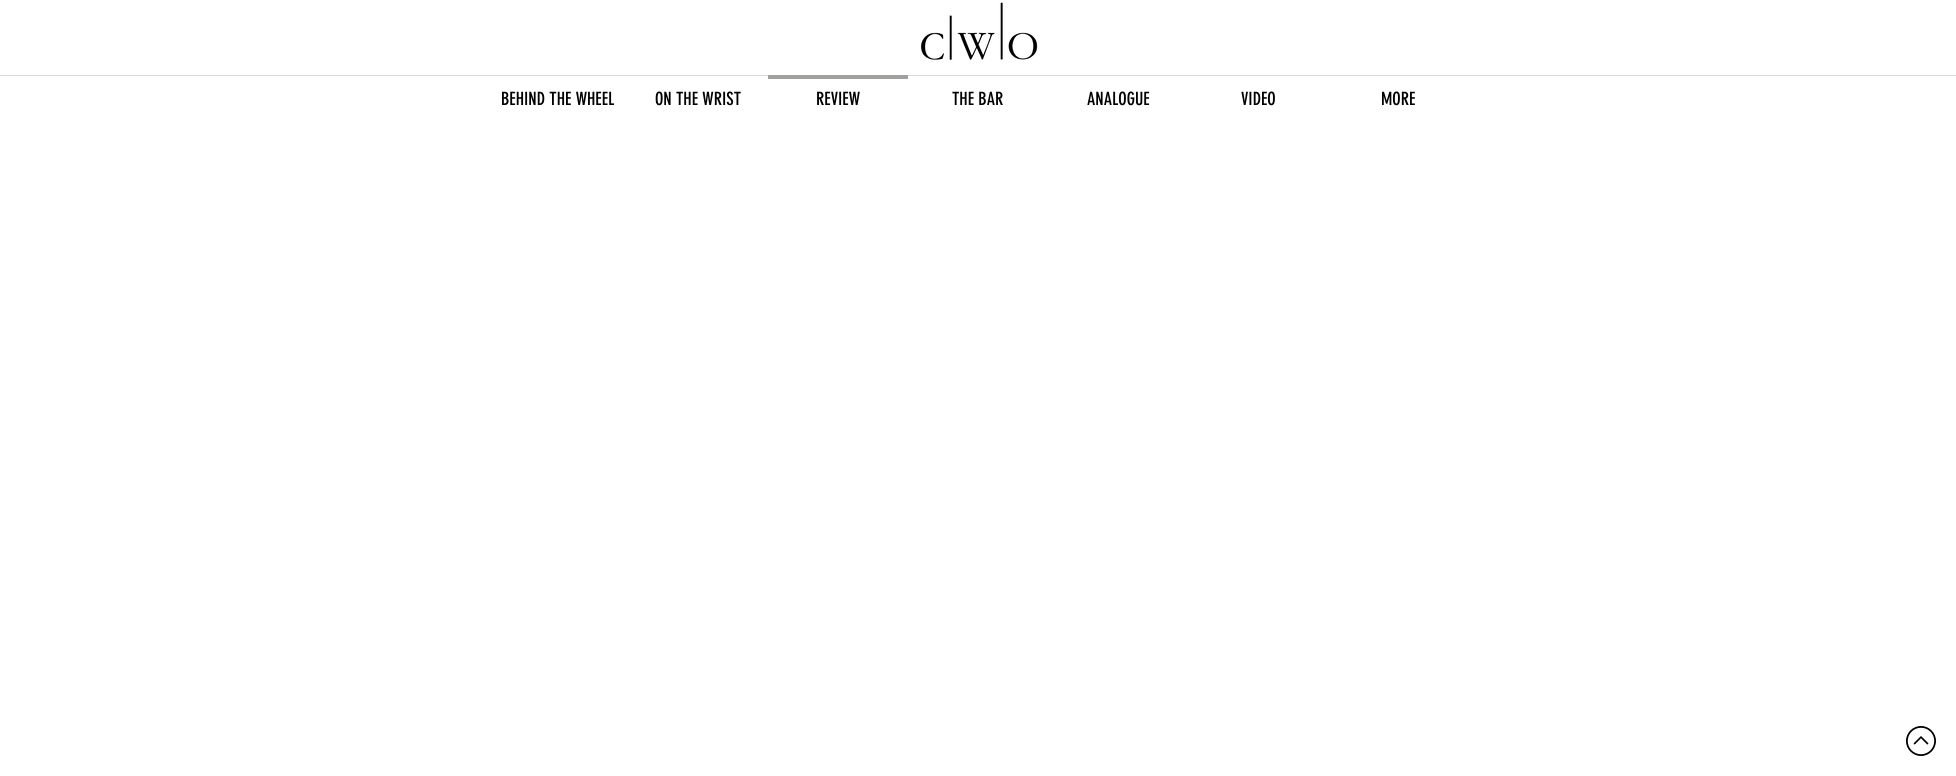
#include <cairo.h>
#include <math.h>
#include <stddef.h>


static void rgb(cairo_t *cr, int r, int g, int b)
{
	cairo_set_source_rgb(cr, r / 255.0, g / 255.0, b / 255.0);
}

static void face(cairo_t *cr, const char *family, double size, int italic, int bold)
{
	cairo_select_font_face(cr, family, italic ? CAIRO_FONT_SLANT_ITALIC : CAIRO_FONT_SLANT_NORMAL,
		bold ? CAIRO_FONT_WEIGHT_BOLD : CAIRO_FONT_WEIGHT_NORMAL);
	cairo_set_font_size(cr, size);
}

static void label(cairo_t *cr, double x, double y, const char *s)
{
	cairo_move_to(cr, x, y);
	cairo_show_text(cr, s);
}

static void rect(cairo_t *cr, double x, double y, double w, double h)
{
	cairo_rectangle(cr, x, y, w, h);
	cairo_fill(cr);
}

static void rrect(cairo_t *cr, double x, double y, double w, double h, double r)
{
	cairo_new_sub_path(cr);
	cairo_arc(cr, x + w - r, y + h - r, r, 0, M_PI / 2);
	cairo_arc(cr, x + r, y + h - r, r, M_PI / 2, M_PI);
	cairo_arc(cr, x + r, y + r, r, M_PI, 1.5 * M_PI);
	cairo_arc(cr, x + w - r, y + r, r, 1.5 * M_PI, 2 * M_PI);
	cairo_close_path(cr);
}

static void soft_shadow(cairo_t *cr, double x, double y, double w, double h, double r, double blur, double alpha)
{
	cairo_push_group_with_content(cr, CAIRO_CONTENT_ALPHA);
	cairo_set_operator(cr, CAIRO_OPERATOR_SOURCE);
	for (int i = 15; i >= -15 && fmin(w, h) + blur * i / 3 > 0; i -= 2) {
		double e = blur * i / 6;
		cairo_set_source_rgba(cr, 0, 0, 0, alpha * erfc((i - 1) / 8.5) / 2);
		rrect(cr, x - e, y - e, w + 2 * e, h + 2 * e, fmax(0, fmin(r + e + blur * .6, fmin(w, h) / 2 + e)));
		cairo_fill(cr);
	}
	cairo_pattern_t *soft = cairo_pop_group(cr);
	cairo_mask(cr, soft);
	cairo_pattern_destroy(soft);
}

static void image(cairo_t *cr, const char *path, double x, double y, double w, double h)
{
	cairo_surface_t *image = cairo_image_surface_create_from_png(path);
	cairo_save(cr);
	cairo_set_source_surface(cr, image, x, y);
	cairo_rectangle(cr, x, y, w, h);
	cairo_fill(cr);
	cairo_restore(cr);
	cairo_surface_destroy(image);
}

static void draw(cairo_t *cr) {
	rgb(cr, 255, 255, 255);
	cairo_paint(cr);
	cairo_save(cr);
	cairo_rectangle(cr, 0, 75, 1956, 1);
	cairo_clip(cr);
	rgb(cr, 0, 0, 0);
	soft_shadow(cr, 0, 0, 1956, 75, 0, 0.5, 0.6);
	cairo_restore(cr);
	image(cr, "image0.png", 920, 2, 118, 58);
	face(cr, "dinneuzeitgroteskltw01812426", 18, 0, 0);
	rgb(cr, 0, 0, 0);
	label(cr, 501, 105, "BEHIND THE WHEEL");
	label(cr, 655, 105, "ON THE WRIST");
	rgb(cr, 160, 160, 159);
	rect(cr, 768, 75, 140, 4);
	rgb(cr, 0, 0, 0);
	label(cr, 816, 105, "REVIEW");
	label(cr, 952, 105, "THE BAR");
	label(cr, 1087, 105, "ANALOGUE");
	label(cr, 1241, 105, "VIDEO");
	label(cr, 1381, 105, "MORE");
	image(cr, "image1.png", 1906, 726, 30, 30);
}

int main(void) {
	cairo_surface_t *surface = cairo_image_surface_create(CAIRO_FORMAT_RGB24, 1956, 776);
	cairo_t *cr = cairo_create(surface);
	cairo_font_options_t *options = cairo_font_options_create();
	cairo_font_options_set_hint_metrics(options, CAIRO_HINT_METRICS_OFF);
	cairo_font_options_set_hint_style(options, CAIRO_HINT_STYLE_NONE);
	cairo_set_font_options(cr, options);
	cairo_set_miter_limit(cr, 4);
	draw(cr);
	cairo_surface_write_to_png(surface, "render.png");
	cairo_font_options_destroy(options);
	cairo_destroy(cr);
	cairo_surface_destroy(surface);
	return 0;
}
